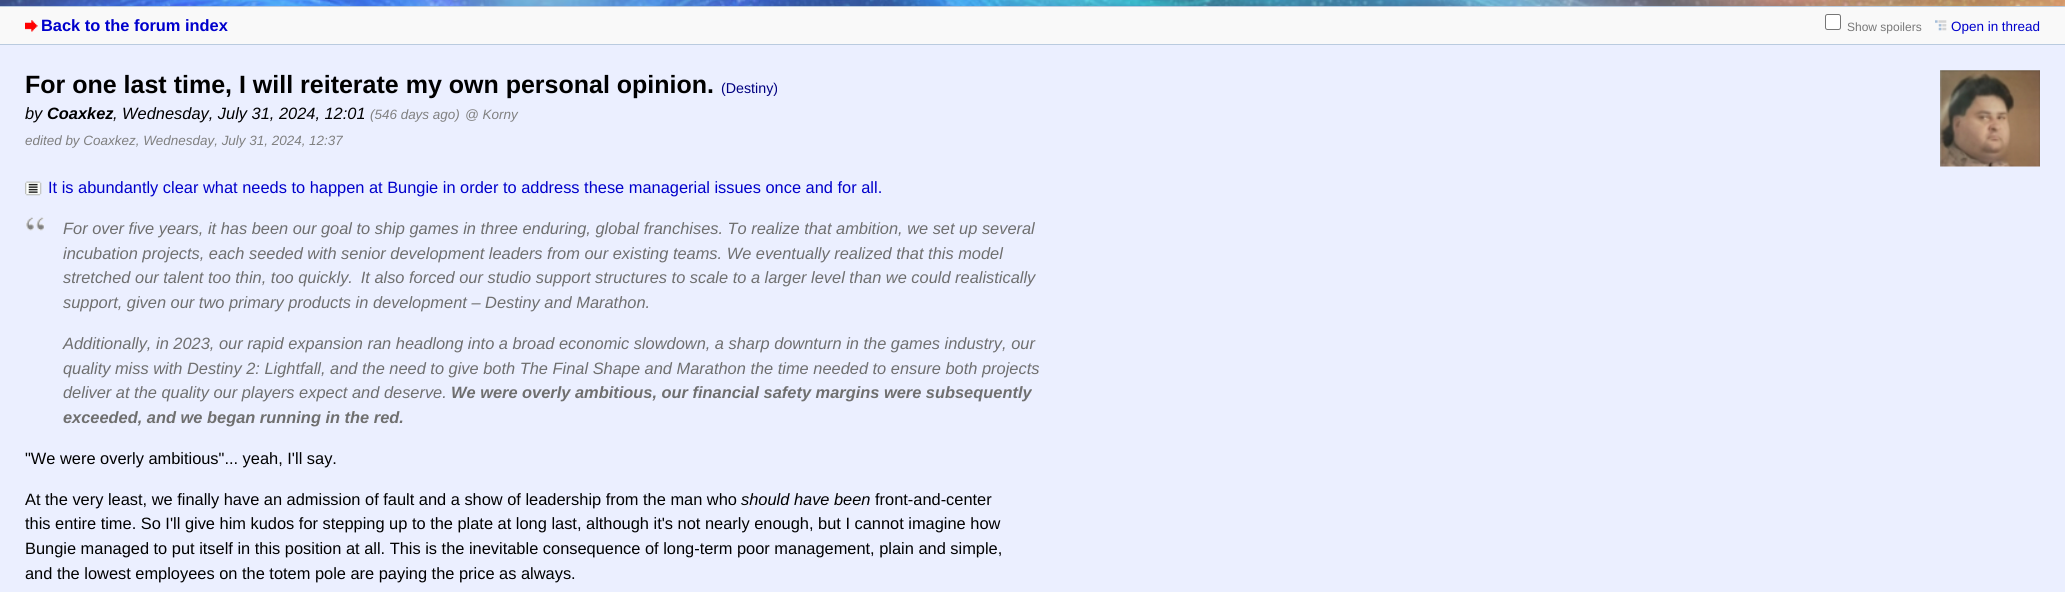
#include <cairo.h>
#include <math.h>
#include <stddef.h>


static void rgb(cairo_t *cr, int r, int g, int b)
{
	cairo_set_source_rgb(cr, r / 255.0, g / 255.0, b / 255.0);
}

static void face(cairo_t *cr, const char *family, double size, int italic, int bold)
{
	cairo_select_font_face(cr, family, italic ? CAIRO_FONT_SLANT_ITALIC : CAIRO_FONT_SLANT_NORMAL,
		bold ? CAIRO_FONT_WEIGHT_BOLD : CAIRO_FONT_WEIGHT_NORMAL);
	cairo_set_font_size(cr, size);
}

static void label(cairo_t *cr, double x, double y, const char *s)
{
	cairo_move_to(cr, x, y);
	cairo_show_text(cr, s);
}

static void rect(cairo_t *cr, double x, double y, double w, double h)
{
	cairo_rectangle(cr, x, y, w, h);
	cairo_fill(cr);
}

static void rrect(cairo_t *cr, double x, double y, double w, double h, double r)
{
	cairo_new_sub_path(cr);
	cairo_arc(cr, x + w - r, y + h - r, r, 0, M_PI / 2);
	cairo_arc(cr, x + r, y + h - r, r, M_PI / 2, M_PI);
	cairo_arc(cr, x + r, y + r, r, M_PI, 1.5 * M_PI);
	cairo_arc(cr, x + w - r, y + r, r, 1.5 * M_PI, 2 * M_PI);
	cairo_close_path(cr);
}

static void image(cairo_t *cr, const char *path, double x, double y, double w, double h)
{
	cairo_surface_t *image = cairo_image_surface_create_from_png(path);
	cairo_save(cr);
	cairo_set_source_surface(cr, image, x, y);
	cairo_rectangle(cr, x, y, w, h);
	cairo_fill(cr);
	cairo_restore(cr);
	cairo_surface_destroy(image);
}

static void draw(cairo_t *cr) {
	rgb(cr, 235, 239, 255);
	cairo_paint(cr);
	image(cr, "image0.png", 0, 0, 2065, 6);
	rgb(cr, 249, 249, 249);
	rect(cr, 0, 7, 2065, 37);
	rgb(cr, 186, 203, 223);
	rect(cr, 0, 6, 2065, 1);
	rect(cr, 0, 44, 2065, 1);
	image(cr, "image1.png", 25, 20, 13, 12);
	face(cr, "Liberation Sans", 16.4, 0, 1);
	rgb(cr, 0, 0, 204);
	label(cr, 41, 31, "Back to the forum index");
	rgb(cr, 255, 255, 255);
	rrect(cr, 1825.5, 14.5, 15, 15, 2);
	cairo_fill_preserve(cr);
	rgb(cr, 118, 118, 118);
	cairo_set_line_width(cr, 1);
	cairo_stroke(cr);
	face(cr, "Liberation Sans", 12, 0, 0);
	rgb(cr, 120, 120, 120);
	label(cr, 1847, 31, "Show spoilers");
	image(cr, "image2.png", 1935, 20, 12, 11);
	face(cr, "Liberation Sans", 13.45, 0, 0);
	rgb(cr, 0, 0, 204);
	label(cr, 1951, 31, "Open in thread");
	face(cr, "Liberation Sans", 25, 0, 1);
	rgb(cr, 0, 0, 0);
	label(cr, 25, 93, "For one last time, I will reiterate my own personal opinion.");
	face(cr, "Liberation Sans", 14.25, 0, 0);
	rgb(cr, 0, 0, 128);
	label(cr, 721, 93, "(Destiny)");
	image(cr, "image3.png", 1940, 70, 100, 97);
	face(cr, "Liberation Sans", 16.4, 1, 0);
	rgb(cr, 0, 0, 0);
	label(cr, 25, 119, "by");
	face(cr, "Liberation Sans", 16.4, 1, 1);
	label(cr, 47, 119, "Coaxkez");
	face(cr, "Liberation Sans", 16.4, 1, 0);
	label(cr, 113, 119, ", Wednesday, July 31, 2024, 12:01");
	face(cr, "Liberation Sans", 13.45, 1, 0);
	rgb(cr, 128, 128, 128);
	label(cr, 370, 119, "(546 days ago)");
	face(cr, "Liberation Sans", 13.5, 1, 0);
	label(cr, 465, 119, "@ Korny");
	face(cr, "Liberation Sans", 13.45, 1, 0);
	label(cr, 25, 145, "edited by Coaxkez, Wednesday, July 31, 2024, 12:37");
	image(cr, "image4.png", 25, 181, 17, 15);
	face(cr, "Liberation Sans", 16.4, 0, 0);
	rgb(cr, 0, 0, 204);
	label(cr, 48, 193, "It is abundantly clear what needs to happen at Bungie in order to address these managerial issues once and for all.");
	image(cr, "image5.png", 26, 217, 18, 14);
	face(cr, "Liberation Sans", 16.4, 1, 0);
	rgb(cr, 111, 111, 111);
	label(cr, 63, 234, "For over five years, it has been our goal to ship games in three enduring, global franchises. To realize that ambition, we set up several");
	label(cr, 63, 259, "incubation projects, each seeded with senior development leaders from our existing teams. We eventually realized that this model");
	label(cr, 63, 283, "stretched our talent too thin, too quickly.  It also forced our studio support structures to scale to a larger level than we could realistically");
	label(cr, 63, 308, "support, given our two primary products in development – Destiny and Marathon.");
	label(cr, 63, 349, "Additionally, in 2023, our rapid expansion ran headlong into a broad economic slowdown, a sharp downturn in the games industry, our");
	label(cr, 63, 374, "quality miss with Destiny 2: Lightfall, and the need to give both The Final Shape and Marathon the time needed to ensure both projects");
	label(cr, 63, 398, "deliver at the quality our players expect and deserve.");
	face(cr, "Liberation Sans", 16.4, 1, 1);
	label(cr, 451, 398, "We were overly ambitious, our financial safety margins were subsequently");
	label(cr, 63, 423, "exceeded, and we began running in the red.");
	face(cr, "Liberation Sans", 16.4, 0, 0);
	rgb(cr, 0, 0, 0);
	label(cr, 25, 464, "\"We were overly ambitious\"... yeah, I'll say.");
	label(cr, 25, 505, "At the very least, we finally have an admission of fault and a show of leadership from the man who");
	face(cr, "Liberation Sans", 16.4, 1, 0);
	label(cr, 741, 505, "should have been");
	face(cr, "Liberation Sans", 16.4, 0, 0);
	label(cr, 875, 505, "front-and-center");
	label(cr, 25, 529, "this entire time. So I'll give him kudos for stepping up to the plate at long last, although it's not nearly enough, but I cannot imagine how");
	label(cr, 25, 554, "Bungie managed to put itself in this position at all. This is the inevitable consequence of long-term poor management, plain and simple,");
	label(cr, 25, 579, "and the lowest employees on the totem pole are paying the price as always.");
}

int main(void) {
	cairo_surface_t *surface = cairo_image_surface_create(CAIRO_FORMAT_RGB24, 2065, 592);
	cairo_t *cr = cairo_create(surface);
	cairo_font_options_t *options = cairo_font_options_create();
	cairo_font_options_set_hint_metrics(options, CAIRO_HINT_METRICS_OFF);
	cairo_font_options_set_hint_style(options, CAIRO_HINT_STYLE_NONE);
	cairo_set_font_options(cr, options);
	cairo_set_miter_limit(cr, 4);
	draw(cr);
	cairo_surface_write_to_png(surface, "render.png");
	cairo_font_options_destroy(options);
	cairo_destroy(cr);
	cairo_surface_destroy(surface);
	return 0;
}
